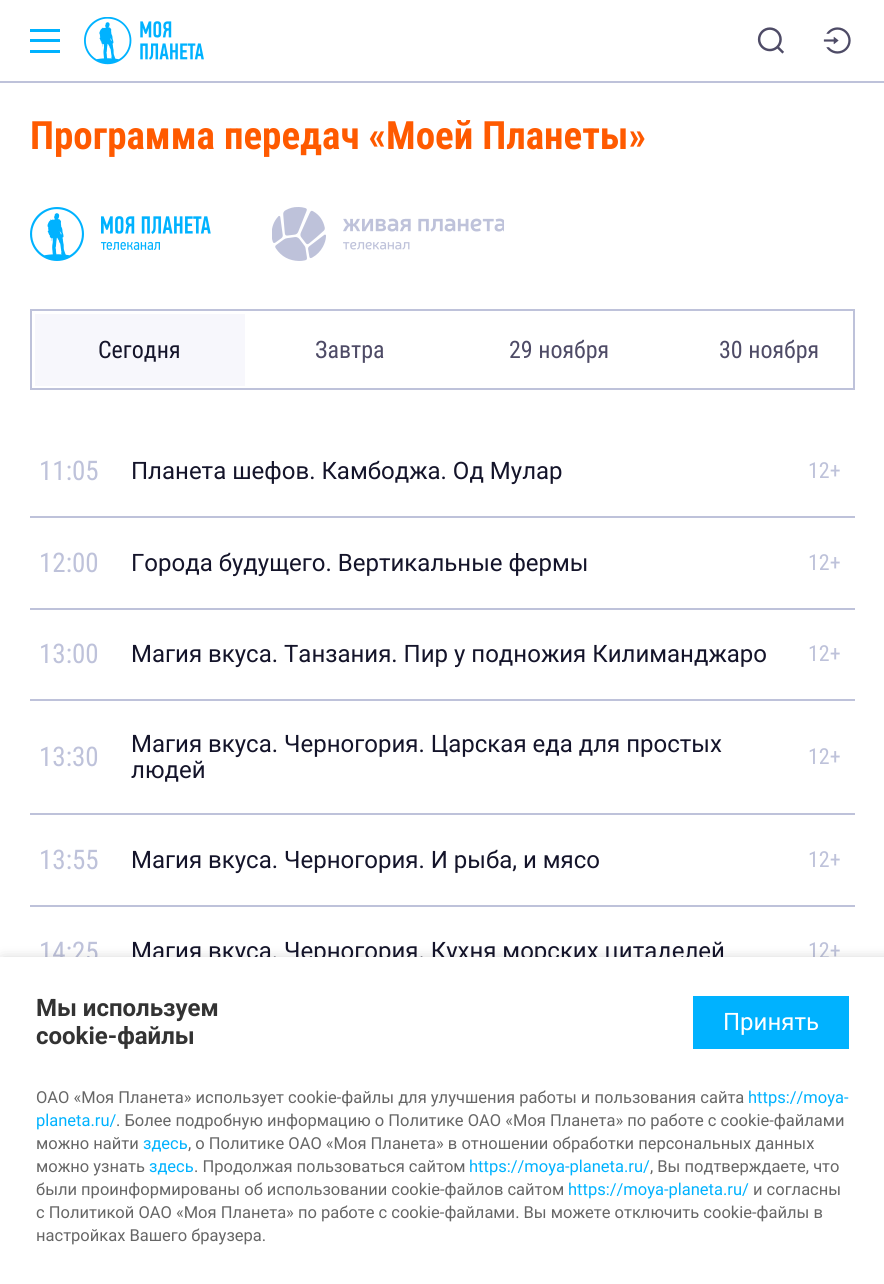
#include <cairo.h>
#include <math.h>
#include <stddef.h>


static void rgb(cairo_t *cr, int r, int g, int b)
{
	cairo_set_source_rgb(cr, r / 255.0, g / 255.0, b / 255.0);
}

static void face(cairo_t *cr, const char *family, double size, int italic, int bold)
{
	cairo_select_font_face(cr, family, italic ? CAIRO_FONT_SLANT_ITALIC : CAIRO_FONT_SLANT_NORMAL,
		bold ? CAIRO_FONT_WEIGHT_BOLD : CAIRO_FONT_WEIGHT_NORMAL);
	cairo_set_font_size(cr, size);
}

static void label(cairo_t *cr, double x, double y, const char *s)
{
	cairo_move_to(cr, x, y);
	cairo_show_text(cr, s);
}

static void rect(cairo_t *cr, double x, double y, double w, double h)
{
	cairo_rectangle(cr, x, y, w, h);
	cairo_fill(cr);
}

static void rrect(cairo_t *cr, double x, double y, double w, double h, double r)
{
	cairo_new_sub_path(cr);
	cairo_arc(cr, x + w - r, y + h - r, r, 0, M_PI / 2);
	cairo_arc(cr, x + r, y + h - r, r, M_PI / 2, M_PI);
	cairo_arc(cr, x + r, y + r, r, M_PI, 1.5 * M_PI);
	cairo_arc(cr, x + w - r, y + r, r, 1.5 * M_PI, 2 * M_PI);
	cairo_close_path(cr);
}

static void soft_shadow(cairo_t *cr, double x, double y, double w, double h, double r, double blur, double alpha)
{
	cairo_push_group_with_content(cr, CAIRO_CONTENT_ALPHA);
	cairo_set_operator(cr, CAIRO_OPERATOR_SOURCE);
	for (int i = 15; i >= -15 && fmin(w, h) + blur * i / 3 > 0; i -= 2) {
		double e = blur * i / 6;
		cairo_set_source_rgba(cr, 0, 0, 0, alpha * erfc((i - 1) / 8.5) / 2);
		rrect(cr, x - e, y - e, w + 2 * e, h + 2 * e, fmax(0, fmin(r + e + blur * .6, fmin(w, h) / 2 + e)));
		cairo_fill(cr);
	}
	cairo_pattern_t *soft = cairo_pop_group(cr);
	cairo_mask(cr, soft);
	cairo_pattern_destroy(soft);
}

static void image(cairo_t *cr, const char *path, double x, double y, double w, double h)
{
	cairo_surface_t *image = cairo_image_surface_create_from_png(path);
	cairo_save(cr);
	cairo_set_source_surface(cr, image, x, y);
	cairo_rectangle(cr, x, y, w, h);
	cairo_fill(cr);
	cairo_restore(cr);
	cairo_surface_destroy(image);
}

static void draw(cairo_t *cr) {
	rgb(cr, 255, 255, 255);
	cairo_paint(cr);
	rgb(cr, 190, 194, 218);
	rect(cr, 0, 81, 884, 2);
	rgb(cr, 0, 178, 255);
	rect(cr, 30, 29, 30, 3);
	rect(cr, 30, 39, 30, 3);
	rect(cr, 30, 50, 30, 3);
	image(cr, "image0.png", 84, 17, 120, 48);
	image(cr, "image1.png", 757, 27, 27, 27);
	image(cr, "image2.png", 823, 27, 28, 27);
	face(cr, "Roboto Condensed", 39, 0, 1);
	rgb(cr, 255, 90, 0);
	label(cr, 30, 149, "Программа передач «Моей Планеты»");
	image(cr, "image3.png", 30, 207, 181, 54);
	image(cr, "image4.png", 272, 207, 232, 54);
	cairo_rectangle(cr, 31, 310, 823, 79);
	rgb(cr, 190, 194, 218);
	cairo_stroke(cr);
	rgb(cr, 247, 247, 252);
	rect(cr, 35, 314, 210, 72);
	face(cr, "Roboto Condensed", 24, 0, 0);
	rgb(cr, 20, 20, 42);
	label(cr, 98, 358, "Сегодня");
	rgb(cr, 78, 75, 102);
	label(cr, 315, 358, "Завтра");
	label(cr, 509, 358, "29 ноября");
	label(cr, 719, 358, "30 ноября");
	rgb(cr, 190, 194, 218);
	rect(cr, 30, 516, 825, 2);
	face(cr, "Roboto Condensed", 27, 0, 0);
	label(cr, 39, 480, "11:05");
	face(cr, "Roboto", 24, 0, 0);
	rgb(cr, 20, 20, 42);
	label(cr, 131, 479, "Планета шефов. Камбоджа. Од Мулар");
	face(cr, "Roboto Condensed", 22, 0, 0);
	rgb(cr, 190, 194, 218);
	label(cr, 808, 478, "12+");
	rect(cr, 30, 608, 825, 2);
	face(cr, "Roboto Condensed", 27, 0, 0);
	label(cr, 39, 572, "12:00");
	face(cr, "Roboto", 24, 0, 0);
	rgb(cr, 20, 20, 42);
	label(cr, 131, 571, "Города будущего. Вертикальные фермы");
	face(cr, "Roboto Condensed", 22, 0, 0);
	rgb(cr, 190, 194, 218);
	label(cr, 808, 570, "12+");
	rect(cr, 30, 699, 825, 2);
	face(cr, "Roboto Condensed", 27, 0, 0);
	label(cr, 39, 663, "13:00");
	face(cr, "Roboto", 24, 0, 0);
	rgb(cr, 20, 20, 42);
	label(cr, 131, 662, "Магия вкуса. Танзания. Пир у подножия Килиманджаро");
	face(cr, "Roboto Condensed", 22, 0, 0);
	rgb(cr, 190, 194, 218);
	label(cr, 808, 661, "12+");
	rect(cr, 30, 813, 825, 2);
	face(cr, "Roboto Condensed", 27, 0, 0);
	label(cr, 39, 766, "13:30");
	face(cr, "Roboto", 24, 0, 0);
	rgb(cr, 20, 20, 42);
	label(cr, 131, 752, "Магия вкуса. Черногория. Царская еда для простых");
	label(cr, 131, 778, "людей");
	face(cr, "Roboto Condensed", 22, 0, 0);
	rgb(cr, 190, 194, 218);
	label(cr, 808, 764, "12+");
	rect(cr, 30, 905, 825, 2);
	face(cr, "Roboto Condensed", 27, 0, 0);
	label(cr, 39, 869, "13:55");
	face(cr, "Roboto", 24, 0, 0);
	rgb(cr, 20, 20, 42);
	label(cr, 131, 868, "Магия вкуса. Черногория. И рыба, и мясо");
	face(cr, "Roboto Condensed", 22, 0, 0);
	rgb(cr, 190, 194, 218);
	label(cr, 808, 867, "12+");
	face(cr, "Roboto Condensed", 27, 0, 0);
	label(cr, 39, 961, "14:25");
	face(cr, "Roboto", 24, 0, 0);
	rgb(cr, 20, 20, 42);
	label(cr, 131, 959, "Магия вкуса. Черногория. Кухня морских цитаделей");
	face(cr, "Roboto Condensed", 22, 0, 0);
	rgb(cr, 190, 194, 218);
	label(cr, 808, 958, "12+");
	rgb(cr, 0, 0, 0);
	soft_shadow(cr, 3, 962, 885, 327, 0, 7.5, 0.3);
	rgb(cr, 255, 255, 255);
	rect(cr, 0, 957, 884, 327);
	face(cr, "Roboto", 24, 0, 1);
	rgb(cr, 51, 51, 51);
	label(cr, 36, 1016, "Мы используем");
	label(cr, 36, 1044, "cookie-файлы");
	rgb(cr, 0, 178, 255);
	rect(cr, 693, 996, 156, 53);
	face(cr, "Roboto", 24, 0, 0);
	rgb(cr, 255, 255, 255);
	label(cr, 723, 1030, "Принять");
	face(cr, "Roboto", 16.5, 0, 0);
	rgb(cr, 102, 102, 102);
	label(cr, 36, 1103, "ОАО «Моя Планета» использует cookie-файлы для улучшения работы и пользования сайта");
	rgb(cr, 0, 178, 255);
	label(cr, 748, 1103, "https://moya-");
	label(cr, 36, 1126, "planeta.ru/");
	rgb(cr, 102, 102, 102);
	label(cr, 116, 1126, ". Более подробную информацию о Политике ОАО «Моя Планета» по работе с cookie-файлами");
	label(cr, 36, 1149, "можно найти");
	rgb(cr, 0, 178, 255);
	label(cr, 143, 1149, "здесь");
	rgb(cr, 102, 102, 102);
	label(cr, 188, 1149, ", о Политике ОАО «Моя Планета» в отношении обработки персональных данных");
	label(cr, 36, 1172, "можно узнать");
	rgb(cr, 0, 178, 255);
	label(cr, 149, 1172, "здесь");
	rgb(cr, 102, 102, 102);
	label(cr, 194, 1172, ". Продолжая пользоваться сайтом");
	rgb(cr, 0, 178, 255);
	label(cr, 469, 1172, "https://moya-planeta.ru/");
	rgb(cr, 102, 102, 102);
	label(cr, 650, 1172, ", Вы подтверждаете, что");
	label(cr, 36, 1195, "были проинформированы об использовании cookie-файлов сайтом");
	rgb(cr, 0, 178, 255);
	label(cr, 568, 1195, "https://moya-planeta.ru/");
	rgb(cr, 102, 102, 102);
	label(cr, 753, 1195, "и согласны");
	label(cr, 36, 1218, "с Политикой ОАО «Моя Планета» по работе с cookie-файлами. Вы можете отключить cookie-файлы в");
	label(cr, 36, 1241, "настройках Вашего браузера.");
}

int main(void) {
	cairo_surface_t *surface = cairo_image_surface_create(CAIRO_FORMAT_RGB24, 884, 1284);
	cairo_t *cr = cairo_create(surface);
	cairo_font_options_t *options = cairo_font_options_create();
	cairo_font_options_set_hint_metrics(options, CAIRO_HINT_METRICS_OFF);
	cairo_font_options_set_hint_style(options, CAIRO_HINT_STYLE_NONE);
	cairo_set_font_options(cr, options);
	cairo_set_miter_limit(cr, 4);
	draw(cr);
	cairo_surface_write_to_png(surface, "render.png");
	cairo_font_options_destroy(options);
	cairo_destroy(cr);
	cairo_surface_destroy(surface);
	return 0;
}
